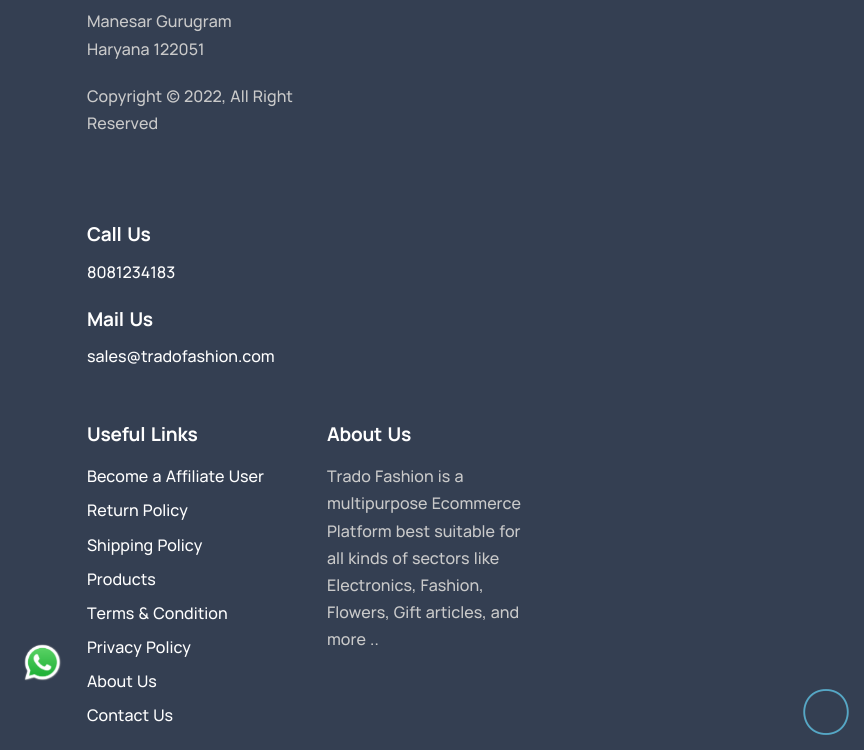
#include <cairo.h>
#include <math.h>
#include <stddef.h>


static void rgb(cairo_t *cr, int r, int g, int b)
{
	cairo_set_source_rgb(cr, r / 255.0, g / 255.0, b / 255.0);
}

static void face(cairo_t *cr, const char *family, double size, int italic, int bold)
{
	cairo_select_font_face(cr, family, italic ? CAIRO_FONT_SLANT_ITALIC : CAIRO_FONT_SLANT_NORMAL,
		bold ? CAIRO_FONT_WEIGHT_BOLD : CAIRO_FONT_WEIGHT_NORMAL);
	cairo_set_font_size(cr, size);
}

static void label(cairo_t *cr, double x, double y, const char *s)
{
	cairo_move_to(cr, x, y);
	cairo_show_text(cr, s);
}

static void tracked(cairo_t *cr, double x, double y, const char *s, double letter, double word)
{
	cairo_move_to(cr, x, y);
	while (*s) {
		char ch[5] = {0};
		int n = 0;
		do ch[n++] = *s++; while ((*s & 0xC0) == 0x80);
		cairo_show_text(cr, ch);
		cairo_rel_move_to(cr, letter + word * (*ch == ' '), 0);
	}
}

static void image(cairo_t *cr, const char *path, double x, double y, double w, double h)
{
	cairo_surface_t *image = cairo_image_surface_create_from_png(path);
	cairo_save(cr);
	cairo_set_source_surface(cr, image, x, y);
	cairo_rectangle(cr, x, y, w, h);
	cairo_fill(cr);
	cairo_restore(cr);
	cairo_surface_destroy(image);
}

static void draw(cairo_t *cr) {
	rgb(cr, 52, 63, 82);
	cairo_paint(cr);
	image(cr, "image0.png", 24, 644, 38, 37);
	face(cr, "Manrope Medium", 16, 0, 0);
	rgb(cr, 202, 202, 202);
	tracked(cr, 87, 27, "Manesar Gurugram", 0, 1);
	tracked(cr, 87, 55, "Haryana 122051", 0, 1);
	tracked(cr, 87, 102, "Copyright © 2022, All Right", 0, 1);
	label(cr, 87, 129, "Reserved");
	face(cr, "Manrope", 19, 0, 1);
	rgb(cr, 255, 255, 255);
	tracked(cr, 87, 241, "Call Us", -0.25, 2);
	face(cr, "Manrope Medium", 16, 0, 0);
	label(cr, 87, 278, "8081234183");
	face(cr, "Manrope", 19, 0, 1);
	tracked(cr, 87, 326, "Mail Us", -0.25, 2);
	face(cr, "Manrope Medium", 16, 0, 0);
	label(cr, 87, 362, "sales@tradofashion.com");
	face(cr, "Manrope", 19, 0, 1);
	tracked(cr, 87, 441, "Useful Links", -0.25, 2);
	face(cr, "Manrope Medium", 16, 0, 0);
	tracked(cr, 87, 482, "Become a Affiliate User", 0, 1);
	tracked(cr, 87, 516, "Return Policy", 0, 1);
	tracked(cr, 87, 551, "Shipping Policy", 0, 1);
	label(cr, 87, 585, "Products");
	tracked(cr, 87, 619, "Terms & Condition", 0, 1);
	tracked(cr, 87, 653, "Privacy Policy", 0, 1);
	tracked(cr, 87, 687, "About Us", 0, 1);
	tracked(cr, 87, 721, "Contact Us", 0, 1);
	face(cr, "Manrope", 19, 0, 1);
	tracked(cr, 327, 441, "About Us", -0.25, 2);
	face(cr, "Manrope Medium", 16, 0, 0);
	rgb(cr, 202, 202, 202);
	tracked(cr, 327, 482, "Trado Fashion is a", 0, 1);
	tracked(cr, 327, 509, "multipurpose Ecommerce", 0, 1);
	tracked(cr, 327, 537, "Platform best suitable for", 0, 1);
	tracked(cr, 327, 564, "all kinds of sectors like", 0, 1);
	tracked(cr, 327, 591, "Electronics, Fashion,", 0, 1);
	tracked(cr, 327, 618, "Flowers, Gift articles, and", 0, 1);
	tracked(cr, 327, 645, "more ..", 0, 1);
	cairo_new_path(cr);
	cairo_arc(cr, 826, 712, 22, 0, 2 * M_PI);
	rgb(cr, 71, 80, 95);
	cairo_stroke(cr);
	cairo_new_path(cr);
	cairo_move_to(cr, 826, 690);
	cairo_curve_to(cr, 855, 690, 855, 734, 826, 734);
	cairo_curve_to(cr, 797, 734, 797, 690, 826, 690);
	rgb(cr, 84, 168, 199);
	cairo_set_line_width(cr, 1.8);
	cairo_stroke(cr);
}

int main(void) {
	cairo_surface_t *surface = cairo_image_surface_create(CAIRO_FORMAT_RGB24, 864, 750);
	cairo_t *cr = cairo_create(surface);
	cairo_font_options_t *options = cairo_font_options_create();
	cairo_font_options_set_hint_metrics(options, CAIRO_HINT_METRICS_OFF);
	cairo_font_options_set_hint_style(options, CAIRO_HINT_STYLE_NONE);
	cairo_set_font_options(cr, options);
	cairo_set_miter_limit(cr, 4);
	draw(cr);
	cairo_surface_write_to_png(surface, "render.png");
	cairo_font_options_destroy(options);
	cairo_destroy(cr);
	cairo_surface_destroy(surface);
	return 0;
}
